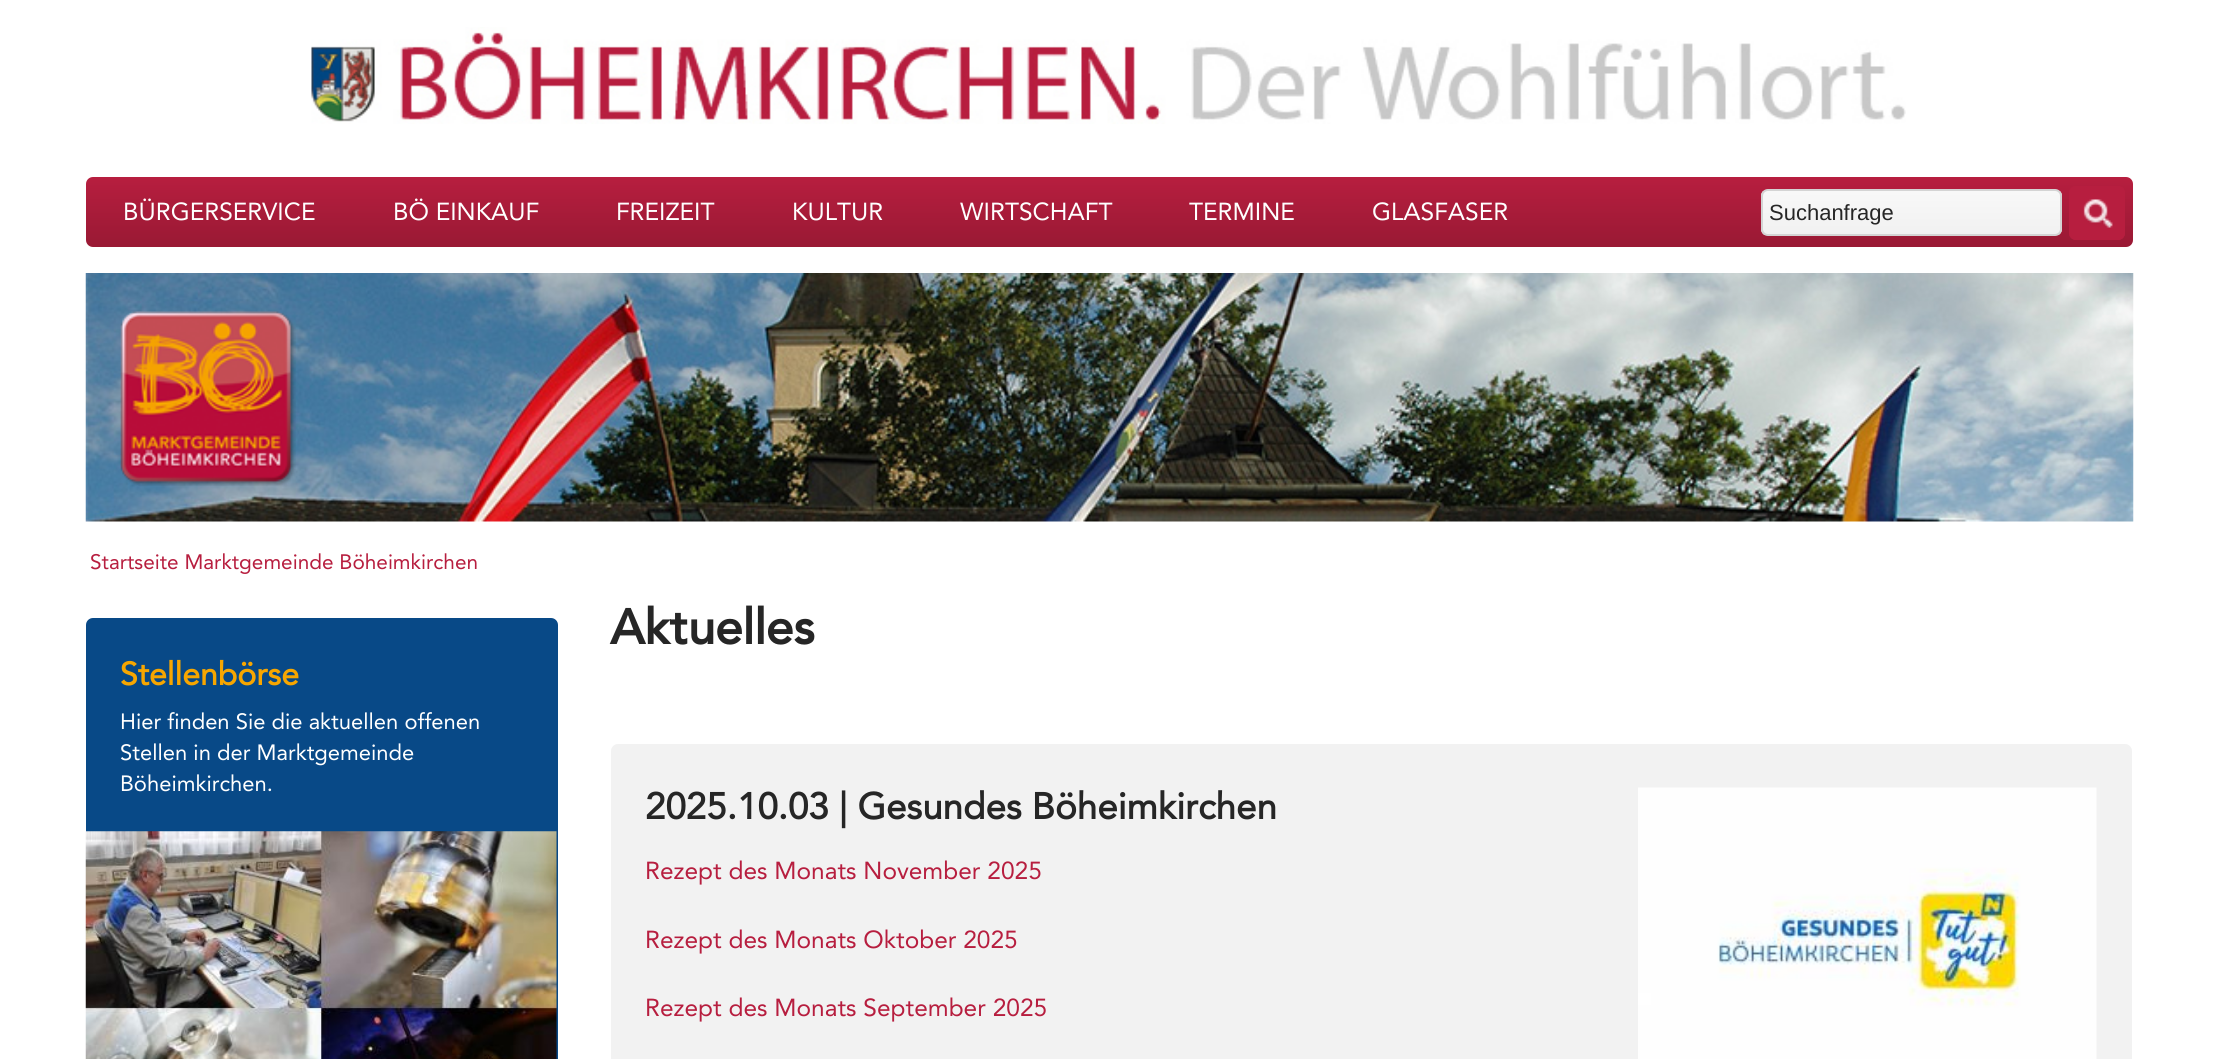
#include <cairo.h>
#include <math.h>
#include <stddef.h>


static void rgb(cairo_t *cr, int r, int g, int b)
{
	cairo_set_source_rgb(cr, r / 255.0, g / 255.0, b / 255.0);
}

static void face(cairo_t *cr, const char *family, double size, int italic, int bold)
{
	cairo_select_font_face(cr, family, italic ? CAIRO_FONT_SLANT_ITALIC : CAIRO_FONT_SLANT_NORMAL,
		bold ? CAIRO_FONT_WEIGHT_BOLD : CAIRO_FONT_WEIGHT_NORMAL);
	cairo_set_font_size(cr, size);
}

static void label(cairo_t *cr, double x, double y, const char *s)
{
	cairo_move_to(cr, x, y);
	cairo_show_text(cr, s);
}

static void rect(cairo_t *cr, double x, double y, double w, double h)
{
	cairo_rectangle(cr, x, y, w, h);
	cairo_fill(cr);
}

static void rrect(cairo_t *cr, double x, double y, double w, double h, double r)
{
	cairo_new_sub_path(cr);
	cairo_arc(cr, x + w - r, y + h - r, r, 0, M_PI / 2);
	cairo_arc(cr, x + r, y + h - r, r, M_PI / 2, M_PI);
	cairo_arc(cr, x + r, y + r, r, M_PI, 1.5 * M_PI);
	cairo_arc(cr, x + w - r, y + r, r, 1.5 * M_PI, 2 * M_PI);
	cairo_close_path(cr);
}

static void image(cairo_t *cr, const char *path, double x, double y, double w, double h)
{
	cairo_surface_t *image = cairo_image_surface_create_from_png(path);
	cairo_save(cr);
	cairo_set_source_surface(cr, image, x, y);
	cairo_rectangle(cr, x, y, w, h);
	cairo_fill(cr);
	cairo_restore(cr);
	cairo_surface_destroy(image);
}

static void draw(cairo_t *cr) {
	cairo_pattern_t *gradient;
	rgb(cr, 255, 255, 255);
	cairo_paint(cr);
	image(cr, "image0.png", 311, 27, 1595, 97);
	gradient = cairo_pattern_create_linear(1110, 177, 1110, 247);
	cairo_pattern_add_color_stop_rgba(gradient, 0, 0.718, 0.118, 0.247, 1);
	cairo_pattern_add_color_stop_rgba(gradient, 1, 0.6, 0.098, 0.204, 1);
	cairo_set_source(cr, gradient);
	cairo_pattern_destroy(gradient);
	rrect(cr, 86, 177, 2047, 70, 7);
	cairo_fill(cr);
	face(cr, "Avenir", 24.5, 0, 0);
	rgb(cr, 255, 255, 255);
	label(cr, 123, 220, "BÜRGERSERVICE");
	label(cr, 393, 220, "BÖ EINKAUF");
	label(cr, 616, 220, "FREIZEIT");
	label(cr, 792, 220, "KULTUR");
	label(cr, 960, 220, "WIRTSCHAFT");
	label(cr, 1189, 220, "TERMINE");
	label(cr, 1372, 220, "GLASFASER");
	cairo_save(cr);
	rrect(cr, 1761, 189, 301, 47, 7);
	cairo_clip(cr);
	gradient = cairo_pattern_create_linear(1911, 191, 1911, 235);
	cairo_pattern_add_color_stop_rgba(gradient, 0, 0.973, 0.973, 0.973, 1);
	cairo_pattern_add_color_stop_rgba(gradient, 1, 0.945, 0.945, 0.945, 1);
	cairo_set_source(cr, gradient);
	cairo_pattern_destroy(gradient);
	rect(cr, 1761, 191, 301, 44);
	cairo_restore(cr);
	rrect(cr, 1762, 190, 299, 45, 6);
	rgb(cr, 212, 212, 212);
	cairo_stroke(cr);
	face(cr, "Liberation Sans", 22, 0, 0);
	rgb(cr, 38, 38, 38);
	label(cr, 1769, 220, "Suchanfrage");
	rgb(cr, 183, 30, 63);
	rrect(cr, 2069, 186, 56, 54, 7);
	cairo_fill(cr);
	image(cr, "image1.png", 2083, 199, 30, 29);
	rrect(cr, 2070, 187, 54, 52, 6);
	cairo_stroke(cr);
	image(cr, "image2.png", 85, 273, 2049, 249);
	image(cr, "image3.png", 120, 311, 176, 175);
	face(cr, "Avenir", 20.8, 0, 0);
	label(cr, 90, 569, "Startseite Marktgemeinde Böheimkirchen");
	rgb(cr, 8, 73, 135);
	rrect(cr, 86, 618, 472, 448, 7);
	cairo_fill(cr);
	face(cr, "Avenir", 32, 0, 1);
	rgb(cr, 247, 166, 0);
	label(cr, 120, 685, "Stellenbörse");
	face(cr, "Avenir", 22, 0, 0);
	rgb(cr, 255, 255, 255);
	label(cr, 120, 729, "Hier finden Sie die aktuellen offenen");
	label(cr, 120, 760, "Stellen in der Marktgemeinde");
	label(cr, 120, 791, "Böheimkirchen.");
	image(cr, "image4.png", 85, 831, 472, 228);
	face(cr, "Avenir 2", 49, 0, 1);
	rgb(cr, 38, 38, 38);
	label(cr, 610, 644, "Aktuelles");
	rgb(cr, 242, 242, 242);
	rrect(cr, 611, 744, 1521, 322, 7);
	cairo_fill(cr);
	face(cr, "Avenir", 36.75, 0, 1);
	rgb(cr, 38, 38, 38);
	label(cr, 645, 819, "2025.10.03 | Gesundes Böheimkirchen");
	face(cr, "Avenir", 24.5, 0, 0);
	rgb(cr, 183, 30, 63);
	label(cr, 645, 879, "Rezept des Monats November 2025");
	label(cr, 645, 948, "Rezept des Monats Oktober 2025");
	label(cr, 645, 1016, "Rezept des Monats September 2025");
	image(cr, "image5.png", 1638, 787, 459, 272);
}

int main(void) {
	cairo_surface_t *surface = cairo_image_surface_create(CAIRO_FORMAT_RGB24, 2216, 1059);
	cairo_t *cr = cairo_create(surface);
	cairo_font_options_t *options = cairo_font_options_create();
	cairo_font_options_set_hint_metrics(options, CAIRO_HINT_METRICS_OFF);
	cairo_font_options_set_hint_style(options, CAIRO_HINT_STYLE_NONE);
	cairo_set_font_options(cr, options);
	cairo_set_miter_limit(cr, 4);
	draw(cr);
	cairo_surface_write_to_png(surface, "render.png");
	cairo_font_options_destroy(options);
	cairo_destroy(cr);
	cairo_surface_destroy(surface);
	return 0;
}
